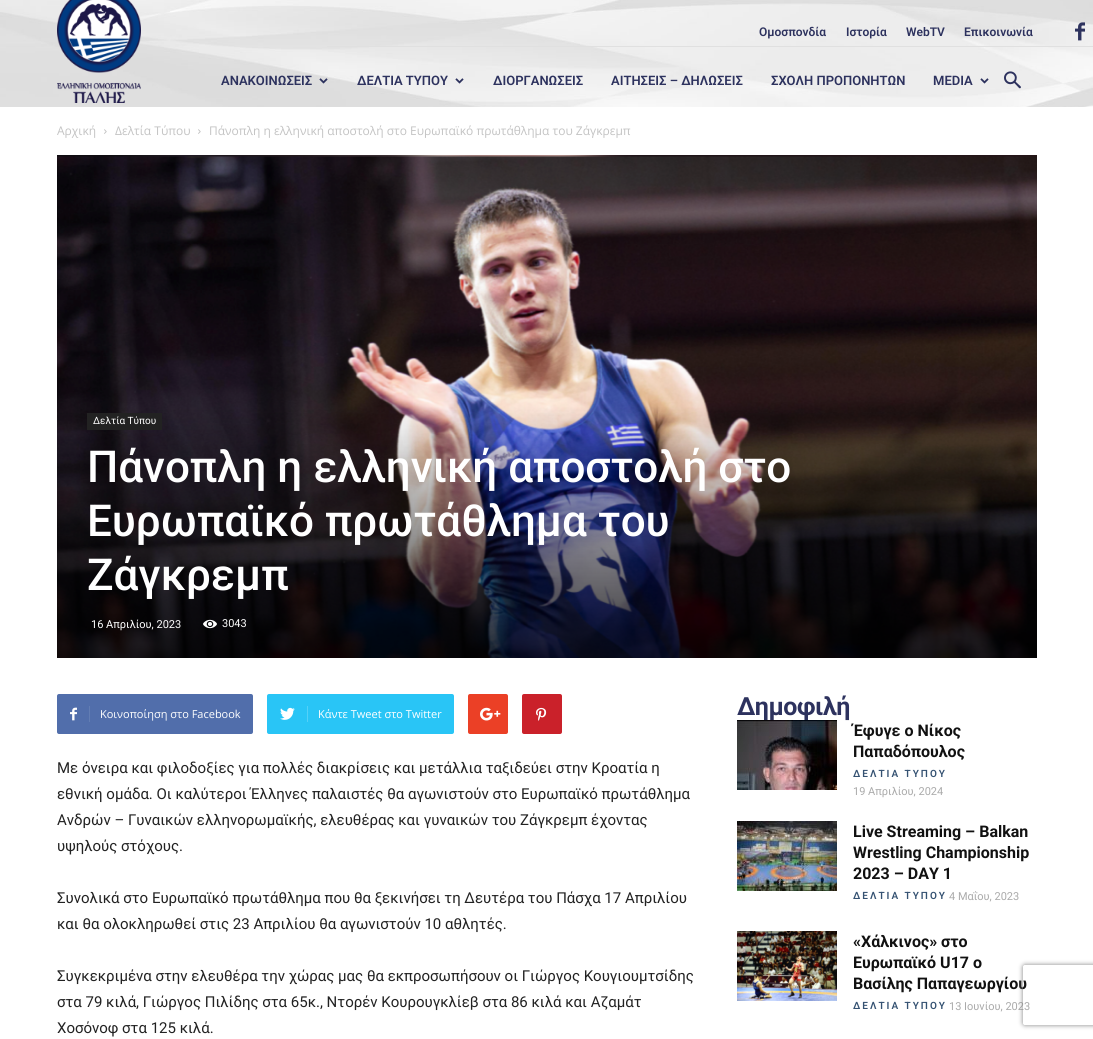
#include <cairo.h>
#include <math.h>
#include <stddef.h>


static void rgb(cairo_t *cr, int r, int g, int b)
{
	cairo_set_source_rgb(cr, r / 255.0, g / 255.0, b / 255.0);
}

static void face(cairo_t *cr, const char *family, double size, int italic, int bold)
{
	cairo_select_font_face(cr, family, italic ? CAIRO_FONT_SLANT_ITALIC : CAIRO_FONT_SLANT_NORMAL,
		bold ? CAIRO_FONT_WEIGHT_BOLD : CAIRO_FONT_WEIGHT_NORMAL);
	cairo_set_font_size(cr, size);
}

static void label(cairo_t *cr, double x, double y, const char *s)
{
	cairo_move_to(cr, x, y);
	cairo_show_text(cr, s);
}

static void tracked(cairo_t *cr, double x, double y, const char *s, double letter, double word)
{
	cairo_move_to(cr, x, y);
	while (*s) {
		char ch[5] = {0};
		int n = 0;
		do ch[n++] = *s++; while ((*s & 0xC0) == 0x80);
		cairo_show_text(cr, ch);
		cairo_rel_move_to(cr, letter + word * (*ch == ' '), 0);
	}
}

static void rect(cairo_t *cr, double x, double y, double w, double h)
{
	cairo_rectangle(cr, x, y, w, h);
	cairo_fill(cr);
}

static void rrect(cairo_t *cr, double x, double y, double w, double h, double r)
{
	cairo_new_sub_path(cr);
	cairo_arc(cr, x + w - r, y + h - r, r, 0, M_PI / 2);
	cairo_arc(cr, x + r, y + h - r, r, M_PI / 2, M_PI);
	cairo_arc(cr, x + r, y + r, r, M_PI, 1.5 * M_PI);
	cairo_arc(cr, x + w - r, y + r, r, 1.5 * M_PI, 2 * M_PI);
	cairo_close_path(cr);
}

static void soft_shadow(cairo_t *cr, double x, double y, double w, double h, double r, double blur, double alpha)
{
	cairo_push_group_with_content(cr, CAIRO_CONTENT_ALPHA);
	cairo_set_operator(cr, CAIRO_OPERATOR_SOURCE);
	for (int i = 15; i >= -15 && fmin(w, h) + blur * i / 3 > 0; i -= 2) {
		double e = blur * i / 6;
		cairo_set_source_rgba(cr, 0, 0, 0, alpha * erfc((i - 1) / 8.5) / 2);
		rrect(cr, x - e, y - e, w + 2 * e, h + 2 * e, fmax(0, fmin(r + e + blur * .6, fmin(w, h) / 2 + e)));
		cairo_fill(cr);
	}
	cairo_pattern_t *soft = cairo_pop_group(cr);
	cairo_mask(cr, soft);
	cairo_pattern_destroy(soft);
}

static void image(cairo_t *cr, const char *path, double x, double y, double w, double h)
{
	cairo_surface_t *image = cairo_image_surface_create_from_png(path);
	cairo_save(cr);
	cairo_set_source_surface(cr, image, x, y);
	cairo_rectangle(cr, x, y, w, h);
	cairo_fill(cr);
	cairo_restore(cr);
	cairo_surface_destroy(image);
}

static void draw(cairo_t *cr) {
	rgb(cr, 255, 255, 255);
	cairo_paint(cr);
	image(cr, "image0.png", 0, 0, 1093, 107);
	image(cr, "image1.png", 57, 0, 84, 103);
	rgb(cr, 224, 224, 224);
	rect(cr, 327, 46, 766, 1);
	face(cr, "Roboto SemiBold", 12, 0, 0);
	rgb(cr, 45, 50, 94);
	label(cr, 759, 36, "Ομοσπονδία");
	label(cr, 846, 36, "Ιστορία");
	label(cr, 906, 36, "WebTV");
	label(cr, 964, 36, "Επικοινωνία");
	image(cr, "image2.png", 1075, 22, 10, 19);
	face(cr, "Roboto SemiBold", 13, 0, 0);
	label(cr, 221, 85, "ΑΝΑΚΟΙΝΩΣΕΙΣ");
	image(cr, "image3.png", 319, 78, 9, 6);
	label(cr, 357, 85, "ΔΕΛΤΙΑ ΤΥΠΟΥ");
	image(cr, "image4.png", 455, 78, 9, 6);
	label(cr, 493, 85, "ΔΙΟΡΓΑΝΩΣΕΙΣ");
	label(cr, 611, 85, "ΑΙΤΗΣΕΙΣ – ΔΗΛΩΣΕΙΣ");
	label(cr, 771, 85, "ΣΧΟΛΗ ΠΡΟΠΟΝΗΤΩΝ");
	label(cr, 933, 85, "MEDIA");
	image(cr, "image5.png", 980, 78, 9, 6);
	image(cr, "image6.png", 1004, 71, 17, 18);
	face(cr, "Open Sans", 12, 0, 0);
	rgb(cr, 195, 195, 195);
	label(cr, 57, 135, "Αρχική");
	image(cr, "image7.png", 104, 129, 3, 5);
	label(cr, 115, 135, "Δελτία Τύπου");
	image(cr, "image7.png", 198, 129, 3, 5);
	label(cr, 209, 135, "Πάνοπλη η ελληνική αποστολή στο Ευρωπαϊκό πρωτάθλημα του Ζάγκρεμπ");
	image(cr, "image8.png", 57, 155, 980, 503);
	rgb(cr, 34, 34, 34);
	rect(cr, 87, 413, 75, 17);
	face(cr, "Roboto", 10, 0, 0);
	rgb(cr, 255, 255, 255);
	label(cr, 93, 424, "Δελτία Τύπου");
	face(cr, "Roboto Medium", 44, 0, 0);
	label(cr, 87, 482, "Πάνοπλη η ελληνική αποστολή στο");
	label(cr, 87, 536, "Ευρωπαϊκό πρωτάθλημα του");
	label(cr, 87, 590, "Ζάγκρεμπ");
	face(cr, "Roboto", 11, 0, 0);
	label(cr, 91, 628, "16 Απριλίου, 2023");
	image(cr, "image9.png", 203, 619, 14, 10);
	label(cr, 222, 627, "3043");
	rgb(cr, 81, 110, 171);
	rrect(cr, 57, 694, 196, 40, 2);
	cairo_fill(cr);
	image(cr, "image10.png", 70, 707, 7, 14);
	rgb(cr, 98, 125, 179);
	rect(cr, 89, 706, 1, 16);
	face(cr, "Open Sans", 11, 0, 0);
	rgb(cr, 255, 255, 255);
	label(cr, 100, 718, "Κοινοποίηση στο Facebook");
	rgb(cr, 41, 197, 246);
	rrect(cr, 267, 694, 187, 40, 2);
	cairo_fill(cr);
	image(cr, "image11.png", 280, 707, 15, 13);
	rgb(cr, 84, 209, 248);
	rect(cr, 307, 706, 1, 16);
	rgb(cr, 255, 255, 255);
	label(cr, 318, 718, "Κάντε Tweet στο Twitter");
	rgb(cr, 235, 64, 38);
	rrect(cr, 468, 694, 40, 40, 2);
	cairo_fill(cr);
	image(cr, "image12.png", 480, 707, 21, 14);
	rgb(cr, 202, 33, 42);
	rrect(cr, 522, 694, 40, 40, 2);
	cairo_fill(cr);
	image(cr, "image13.png", 536, 707, 11, 14);
	face(cr, "Roboto", 15, 0, 0);
	rgb(cr, 34, 34, 34);
	label(cr, 57, 773, "Με όνειρα και φιλοδοξίες για πολλές διακρίσεις και μετάλλια ταξιδεύει στην Κροατία η");
	label(cr, 57, 799, "εθνική ομάδα. Οι καλύτεροι Έλληνες παλαιστές θα αγωνιστούν στο Ευρωπαϊκό πρωτάθλημα");
	label(cr, 57, 825, "Ανδρών – Γυναικών ελληνορωμαϊκής, ελευθέρας και γυναικών του Ζάγκρεμπ έχοντας");
	label(cr, 57, 851, "υψηλούς στόχους.");
	label(cr, 57, 903, "Συνολικά στο Ευρωπαϊκό πρωτάθλημα που θα ξεκινήσει τη Δευτέρα του Πάσχα 17 Απριλίου");
	label(cr, 57, 929, "και θα ολοκληρωθεί στις 23 Απριλίου θα αγωνιστούν 10 αθλητές.");
	label(cr, 57, 981, "Συγκεκριμένα στην ελευθέρα την χώρας μας θα εκπροσωπήσουν οι Γιώργος Κουγιουμτσίδης");
	label(cr, 57, 1007, "στα 79 κιλά, Γιώργος Πιλίδης στα 65κ., Ντορέν Κουρουγκλίεβ στα 86 κιλά και Αζαμάτ");
	label(cr, 57, 1033, "Χοσόνοφ στα 125 κιλά.");
	face(cr, "Roboto", 25, 0, 1);
	rgb(cr, 45, 50, 94);
	tracked(cr, 737, 715, "Δημοφιλή", -0.5, 0);
	image(cr, "image14.png", 737, 720, 100, 70);
	face(cr, "Roboto", 16, 0, 1);
	rgb(cr, 17, 17, 17);
	label(cr, 853, 736, "Έφυγε ο Νίκος");
	label(cr, 853, 757, "Παπαδόπουλος");
	face(cr, "Roboto SemiBold", 10, 0, 0);
	rgb(cr, 53, 82, 114);
	tracked(cr, 853, 777, "ΔΕΛΤΙΑ ΤΥΠΟΥ", 2, 0);
	face(cr, "Roboto", 11, 0, 0);
	rgb(cr, 170, 170, 170);
	label(cr, 853, 795, "19 Απριλίου, 2024");
	image(cr, "image15.png", 737, 821, 100, 70);
	face(cr, "Roboto", 16, 0, 1);
	rgb(cr, 17, 17, 17);
	label(cr, 853, 837, "Live Streaming – Balkan");
	label(cr, 853, 858, "Wrestling Championship");
	label(cr, 853, 879, "2023 – DAY 1");
	face(cr, "Roboto SemiBold", 10, 0, 0);
	rgb(cr, 53, 82, 114);
	tracked(cr, 853, 899, "ΔΕΛΤΙΑ ΤΥΠΟΥ", 2, 0);
	face(cr, "Roboto", 11, 0, 0);
	rgb(cr, 170, 170, 170);
	label(cr, 949, 900, "4 Μαΐου, 2023");
	image(cr, "image16.png", 737, 931, 100, 70);
	face(cr, "Roboto", 16, 0, 1);
	rgb(cr, 17, 17, 17);
	label(cr, 853, 947, "«Χάλκινος» στο");
	label(cr, 853, 968, "Ευρωπαϊκό U17 ο");
	label(cr, 853, 989, "Βασίλης Παπαγεωργίου");
	face(cr, "Roboto SemiBold", 10, 0, 0);
	rgb(cr, 53, 82, 114);
	tracked(cr, 853, 1009, "ΔΕΛΤΙΑ ΤΥΠΟΥ", 2, 0);
	face(cr, "Roboto", 11, 0, 0);
	rgb(cr, 170, 170, 170);
	label(cr, 949, 1010, "13 Ιουνίου, 2023");
	cairo_save(cr);
	cairo_set_fill_rule(cr, CAIRO_FILL_RULE_EVEN_ODD);
	cairo_new_path(cr);
	cairo_move_to(cr, 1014, 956);
	cairo_line_to(cr, 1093, 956);
	cairo_line_to(cr, 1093, 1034);
	cairo_line_to(cr, 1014, 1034);
	cairo_close_path(cr);
	cairo_move_to(cr, 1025, 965);
	cairo_line_to(cr, 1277, 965);
	cairo_curve_to(cr, 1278, 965, 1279, 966, 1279, 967);
	cairo_line_to(cr, 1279, 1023);
	cairo_curve_to(cr, 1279, 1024, 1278, 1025, 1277, 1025);
	cairo_line_to(cr, 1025, 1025);
	cairo_curve_to(cr, 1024, 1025, 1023, 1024, 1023, 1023);
	cairo_line_to(cr, 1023, 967);
	cairo_curve_to(cr, 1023, 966, 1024, 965, 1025, 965);
	cairo_close_path(cr);
	cairo_clip(cr);
	rgb(cr, 128, 128, 128);
	soft_shadow(cr, 1023, 965, 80, 60, 2, 2.5, 1);
	cairo_restore(cr);
}

int main(void) {
	cairo_surface_t *surface = cairo_image_surface_create(CAIRO_FORMAT_RGB24, 1093, 1039);
	cairo_t *cr = cairo_create(surface);
	cairo_font_options_t *options = cairo_font_options_create();
	cairo_font_options_set_hint_metrics(options, CAIRO_HINT_METRICS_OFF);
	cairo_font_options_set_hint_style(options, CAIRO_HINT_STYLE_NONE);
	cairo_set_font_options(cr, options);
	cairo_set_miter_limit(cr, 4);
	draw(cr);
	cairo_surface_write_to_png(surface, "render.png");
	cairo_font_options_destroy(options);
	cairo_destroy(cr);
	cairo_surface_destroy(surface);
	return 0;
}
